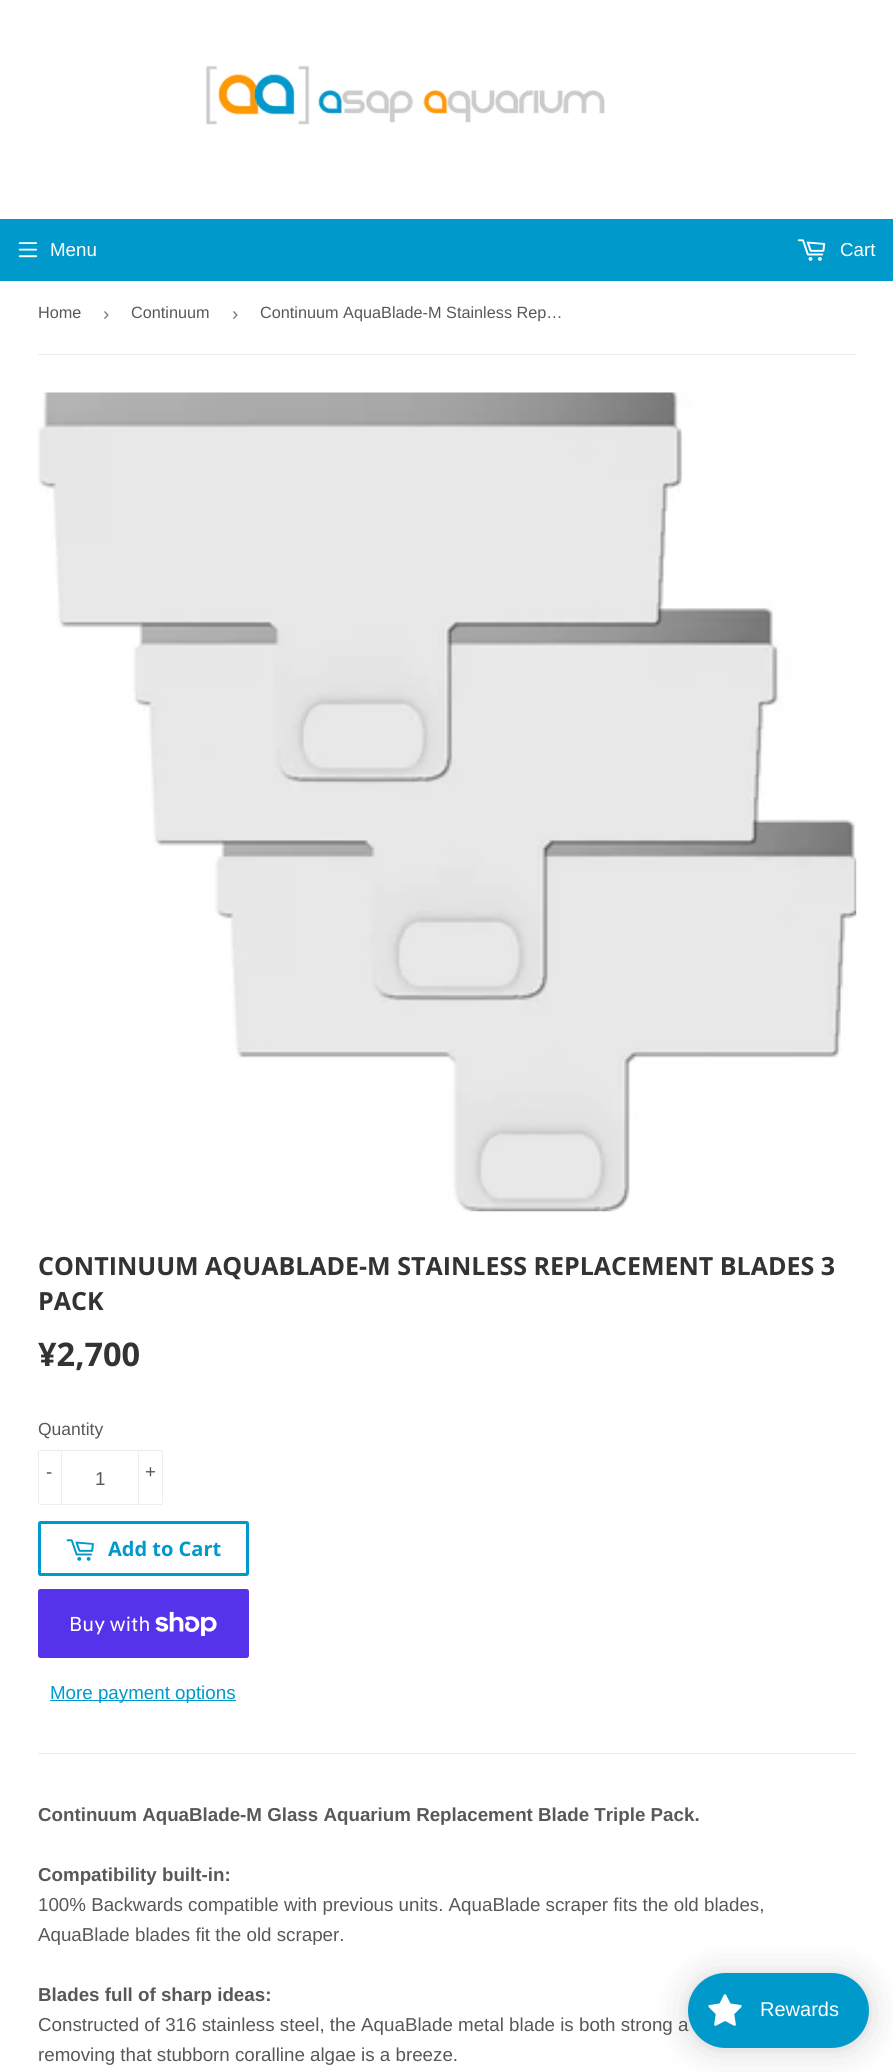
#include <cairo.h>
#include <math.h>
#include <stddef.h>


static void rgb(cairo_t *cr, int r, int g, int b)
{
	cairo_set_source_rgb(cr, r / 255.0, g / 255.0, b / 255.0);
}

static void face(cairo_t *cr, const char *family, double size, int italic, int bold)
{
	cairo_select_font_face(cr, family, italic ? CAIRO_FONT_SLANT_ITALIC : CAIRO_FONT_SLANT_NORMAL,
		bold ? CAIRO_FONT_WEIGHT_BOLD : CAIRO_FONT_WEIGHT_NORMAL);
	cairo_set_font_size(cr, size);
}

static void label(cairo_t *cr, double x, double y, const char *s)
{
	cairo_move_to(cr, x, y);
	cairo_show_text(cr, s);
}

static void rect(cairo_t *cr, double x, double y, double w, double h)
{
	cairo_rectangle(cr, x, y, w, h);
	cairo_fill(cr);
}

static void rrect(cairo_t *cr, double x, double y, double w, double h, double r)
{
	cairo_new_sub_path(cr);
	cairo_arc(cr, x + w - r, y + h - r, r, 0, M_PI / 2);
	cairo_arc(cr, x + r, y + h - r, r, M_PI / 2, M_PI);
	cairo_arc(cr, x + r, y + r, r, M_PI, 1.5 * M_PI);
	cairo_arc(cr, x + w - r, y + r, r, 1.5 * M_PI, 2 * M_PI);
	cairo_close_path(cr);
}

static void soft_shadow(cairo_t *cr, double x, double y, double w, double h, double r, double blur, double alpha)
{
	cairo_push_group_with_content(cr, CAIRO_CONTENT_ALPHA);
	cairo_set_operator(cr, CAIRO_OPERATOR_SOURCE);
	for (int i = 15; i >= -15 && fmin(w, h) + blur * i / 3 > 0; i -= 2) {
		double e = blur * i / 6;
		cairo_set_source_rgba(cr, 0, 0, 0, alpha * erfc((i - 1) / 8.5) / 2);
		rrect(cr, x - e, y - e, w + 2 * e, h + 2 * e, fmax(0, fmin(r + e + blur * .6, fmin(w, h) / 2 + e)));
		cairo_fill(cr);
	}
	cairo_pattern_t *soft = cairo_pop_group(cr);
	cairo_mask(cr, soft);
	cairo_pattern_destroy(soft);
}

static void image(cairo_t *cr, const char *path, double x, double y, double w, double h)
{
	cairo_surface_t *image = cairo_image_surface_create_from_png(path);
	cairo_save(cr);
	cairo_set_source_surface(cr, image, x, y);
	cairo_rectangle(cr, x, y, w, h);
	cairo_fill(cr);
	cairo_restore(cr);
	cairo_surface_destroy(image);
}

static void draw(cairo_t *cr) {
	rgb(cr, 255, 255, 255);
	cairo_paint(cr);
	image(cr, "image0.png", 205, 65, 400, 60);
	rgb(cr, 0, 153, 204);
	rect(cr, 0, 219, 893, 62);
	image(cr, "image1.png", 18, 242, 20, 16);
	face(cr, "Liberation Sans", 18.75, 0, 0);
	rgb(cr, 255, 255, 255);
	label(cr, 50, 256, "Menu");
	image(cr, "image2.png", 797, 239, 29, 22);
	label(cr, 840, 256, "Cart");
	rgb(cr, 236, 236, 236);
	rect(cr, 38, 354, 818, 1);
	face(cr, "Liberation Sans", 16.25, 0, 0);
	rgb(cr, 88, 88, 88);
	label(cr, 38, 318, "Home");
	face(cr, "Liberation Sans", 18.75, 0, 0);
	rgb(cr, 118, 118, 118);
	label(cr, 103, 320, "›");
	face(cr, "Liberation Sans", 16.25, 0, 0);
	rgb(cr, 88, 88, 88);
	label(cr, 131, 318, "Continuum");
	face(cr, "Liberation Sans", 18.75, 0, 0);
	rgb(cr, 118, 118, 118);
	label(cr, 232, 320, "›");
	face(cr, "Liberation Sans", 16.25, 0, 0);
	rgb(cr, 88, 88, 88);
	label(cr, 260, 318, "Continuum AquaBlade-M Stainless Rep…");
	image(cr, "image3.png", 37, 392, 820, 820);
	face(cr, "Open Sans", 25, 0, 1);
	rgb(cr, 51, 51, 51);
	label(cr, 38, 1275, "CONTINUUM AQUABLADE-M STAINLESS REPLACEMENT BLADES 3");
	label(cr, 38, 1310, "PACK");
	face(cr, "Open Sans", 32.5, 0, 1);
	label(cr, 38, 1366, "¥2,700");
	face(cr, "Liberation Sans", 17.5, 0, 0);
	rgb(cr, 88, 88, 88);
	label(cr, 38, 1435, "Quantity");
	rrect(cr, 38.5, 1450.5, 124, 54, 2);
	rgb(cr, 236, 236, 236);
	cairo_set_line_width(cr, 1);
	cairo_stroke(cr);
	rect(cr, 61, 1450, 1, 55);
	face(cr, "Liberation Sans", 18.75, 0, 0);
	rgb(cr, 88, 88, 88);
	label(cr, 46, 1478, "-");
	label(cr, 95, 1485, "1");
	rgb(cr, 236, 236, 236);
	rect(cr, 138, 1450, 1, 55);
	rgb(cr, 88, 88, 88);
	label(cr, 145, 1478, "+");
	rrect(cr, 39.5, 1522.5, 208, 52, 1);
	rgb(cr, 0, 153, 204);
	cairo_set_line_width(cr, 3);
	cairo_stroke(cr);
	image(cr, "image4.png", 66, 1539, 28, 22);
	face(cr, "Open Sans", 20, 0, 1);
	label(cr, 108, 1556, "Add to Cart");
	rgb(cr, 84, 51, 235);
	rrect(cr, 38, 1589, 211, 69, 2.5);
	cairo_fill(cr);
	face(cr, "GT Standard", 20, 0, 0);
	rgb(cr, 255, 255, 255);
	label(cr, 69, 1631, "Buy with");
	image(cr, "image5.png", 155, 1611, 62, 25);
	rgb(cr, 0, 153, 204);
	rect(cr, 50, 1700, 186, 1);
	face(cr, "Liberation Sans", 18.75, 0, 0);
	label(cr, 50, 1699, "More payment options");
	rgb(cr, 236, 236, 236);
	rect(cr, 38, 1753, 818, 1);
	face(cr, "Liberation Sans", 18.75, 0, 1);
	rgb(cr, 88, 88, 88);
	label(cr, 38, 1821, "Continuum AquaBlade-M Glass Aquarium Replacement Blade Triple Pack.");
	label(cr, 38, 1881, "Compatibility built-in:");
	face(cr, "Liberation Sans", 18.75, 0, 0);
	label(cr, 38, 1911, "100% Backwards compatible with previous units. AquaBlade scraper fits the old blades,");
	label(cr, 38, 1941, "AquaBlade blades fit the old scraper.");
	face(cr, "Liberation Sans", 18.75, 0, 1);
	label(cr, 38, 2001, "Blades full of sharp ideas:");
	face(cr, "Liberation Sans", 18.75, 0, 0);
	label(cr, 38, 2031, "Constructed of 316 stainless steel, the AquaBlade metal blade is both strong a");
	label(cr, 38, 2061, "removing that stubborn coralline algae is a breeze.");
	rgb(cr, 0, 0, 0);
	soft_shadow(cr, 688, 1975, 181, 75, 37.5, 19, 0.15);
	soft_shadow(cr, 688, 1974, 181, 75, 37.5, 4, 0.05);
	rgb(cr, 0, 153, 204);
	rrect(cr, 688, 1973, 181, 75, 37.5);
	cairo_fill(cr);
	image(cr, "image6.png", 708, 1994, 34, 32);
	face(cr, "Liberation Sans", 20, 0, 0);
	rgb(cr, 255, 255, 255);
	label(cr, 760, 2016, "Rewards");
}

int main(void) {
	cairo_surface_t *surface = cairo_image_surface_create(CAIRO_FORMAT_RGB24, 893, 2072);
	cairo_t *cr = cairo_create(surface);
	cairo_font_options_t *options = cairo_font_options_create();
	cairo_font_options_set_hint_metrics(options, CAIRO_HINT_METRICS_OFF);
	cairo_font_options_set_hint_style(options, CAIRO_HINT_STYLE_NONE);
	cairo_set_font_options(cr, options);
	cairo_set_miter_limit(cr, 4);
	draw(cr);
	cairo_surface_write_to_png(surface, "render.png");
	cairo_font_options_destroy(options);
	cairo_destroy(cr);
	cairo_surface_destroy(surface);
	return 0;
}
